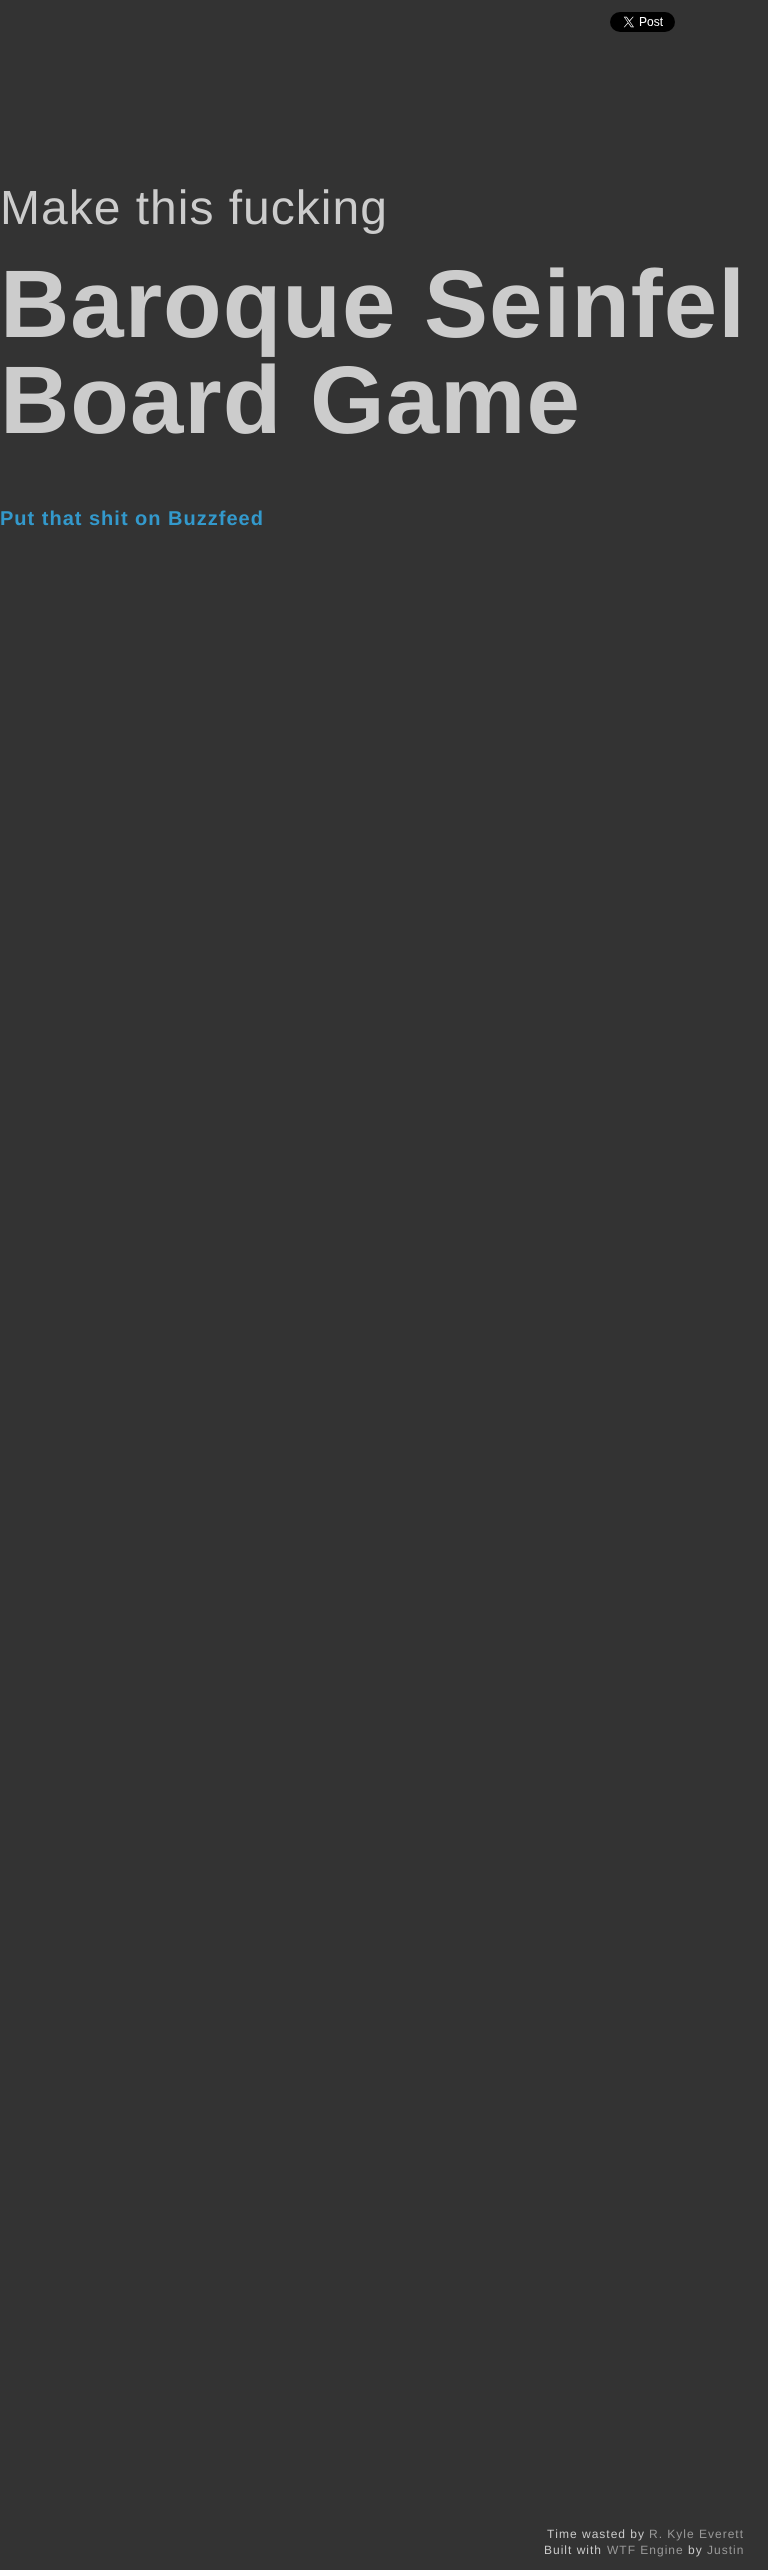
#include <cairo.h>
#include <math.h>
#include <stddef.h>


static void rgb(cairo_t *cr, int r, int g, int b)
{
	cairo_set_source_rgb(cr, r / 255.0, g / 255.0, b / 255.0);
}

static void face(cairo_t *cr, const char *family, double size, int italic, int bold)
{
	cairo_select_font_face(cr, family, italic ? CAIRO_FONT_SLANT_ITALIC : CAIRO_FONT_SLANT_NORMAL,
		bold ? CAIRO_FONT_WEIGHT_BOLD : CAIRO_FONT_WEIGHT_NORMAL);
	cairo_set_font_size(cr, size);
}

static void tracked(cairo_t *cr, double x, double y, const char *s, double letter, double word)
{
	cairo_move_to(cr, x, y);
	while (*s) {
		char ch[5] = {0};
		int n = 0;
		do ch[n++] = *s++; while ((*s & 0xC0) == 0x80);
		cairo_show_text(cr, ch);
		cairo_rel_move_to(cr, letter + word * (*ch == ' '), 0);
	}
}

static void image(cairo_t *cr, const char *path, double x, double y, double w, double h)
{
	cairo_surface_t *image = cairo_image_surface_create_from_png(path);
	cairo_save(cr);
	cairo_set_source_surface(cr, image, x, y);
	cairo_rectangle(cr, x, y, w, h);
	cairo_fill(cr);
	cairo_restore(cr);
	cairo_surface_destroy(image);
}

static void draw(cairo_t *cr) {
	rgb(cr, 51, 51, 51);
	cairo_paint(cr);
	image(cr, "image0.png", 610, 12, 65, 20);
	face(cr, "Liberation Sans", 48, 0, 0);
	rgb(cr, 204, 204, 204);
	tracked(cr, 0, 224, "Make this fucking", 1, 0);
	face(cr, "Liberation Sans", 96, 0, 1);
	tracked(cr, 0, 337, "Baroque Seinfel", 1, 0);
	tracked(cr, 0, 433, "Board Game", 1, 0);
	face(cr, "Liberation Sans", 20, 0, 1);
	rgb(cr, 51, 153, 204);
	tracked(cr, 0, 525, "Put that shit on Buzzfeed", 1, 0);
	face(cr, "Liberation Sans", 12, 0, 0);
	rgb(cr, 204, 204, 204);
	tracked(cr, 547, 2538, "Time wasted by", 1, 0);
	rgb(cr, 153, 153, 153);
	tracked(cr, 649, 2538, "R. Kyle Everett", 1, 0);
	rgb(cr, 204, 204, 204);
	tracked(cr, 544, 2554, "Built with", 1, 0);
	rgb(cr, 153, 153, 153);
	tracked(cr, 607, 2554, "WTF Engine", 1, 0);
	rgb(cr, 204, 204, 204);
	tracked(cr, 688, 2554, "by", 1, 0);
	rgb(cr, 153, 153, 153);
	tracked(cr, 707, 2554, "Justin", 1, 0);
}

int main(void) {
	cairo_surface_t *surface = cairo_image_surface_create(CAIRO_FORMAT_RGB24, 768, 2570);
	cairo_t *cr = cairo_create(surface);
	cairo_font_options_t *options = cairo_font_options_create();
	cairo_font_options_set_hint_metrics(options, CAIRO_HINT_METRICS_OFF);
	cairo_font_options_set_hint_style(options, CAIRO_HINT_STYLE_NONE);
	cairo_set_font_options(cr, options);
	cairo_set_miter_limit(cr, 4);
	draw(cr);
	cairo_surface_write_to_png(surface, "render.png");
	cairo_font_options_destroy(options);
	cairo_destroy(cr);
	cairo_surface_destroy(surface);
	return 0;
}
